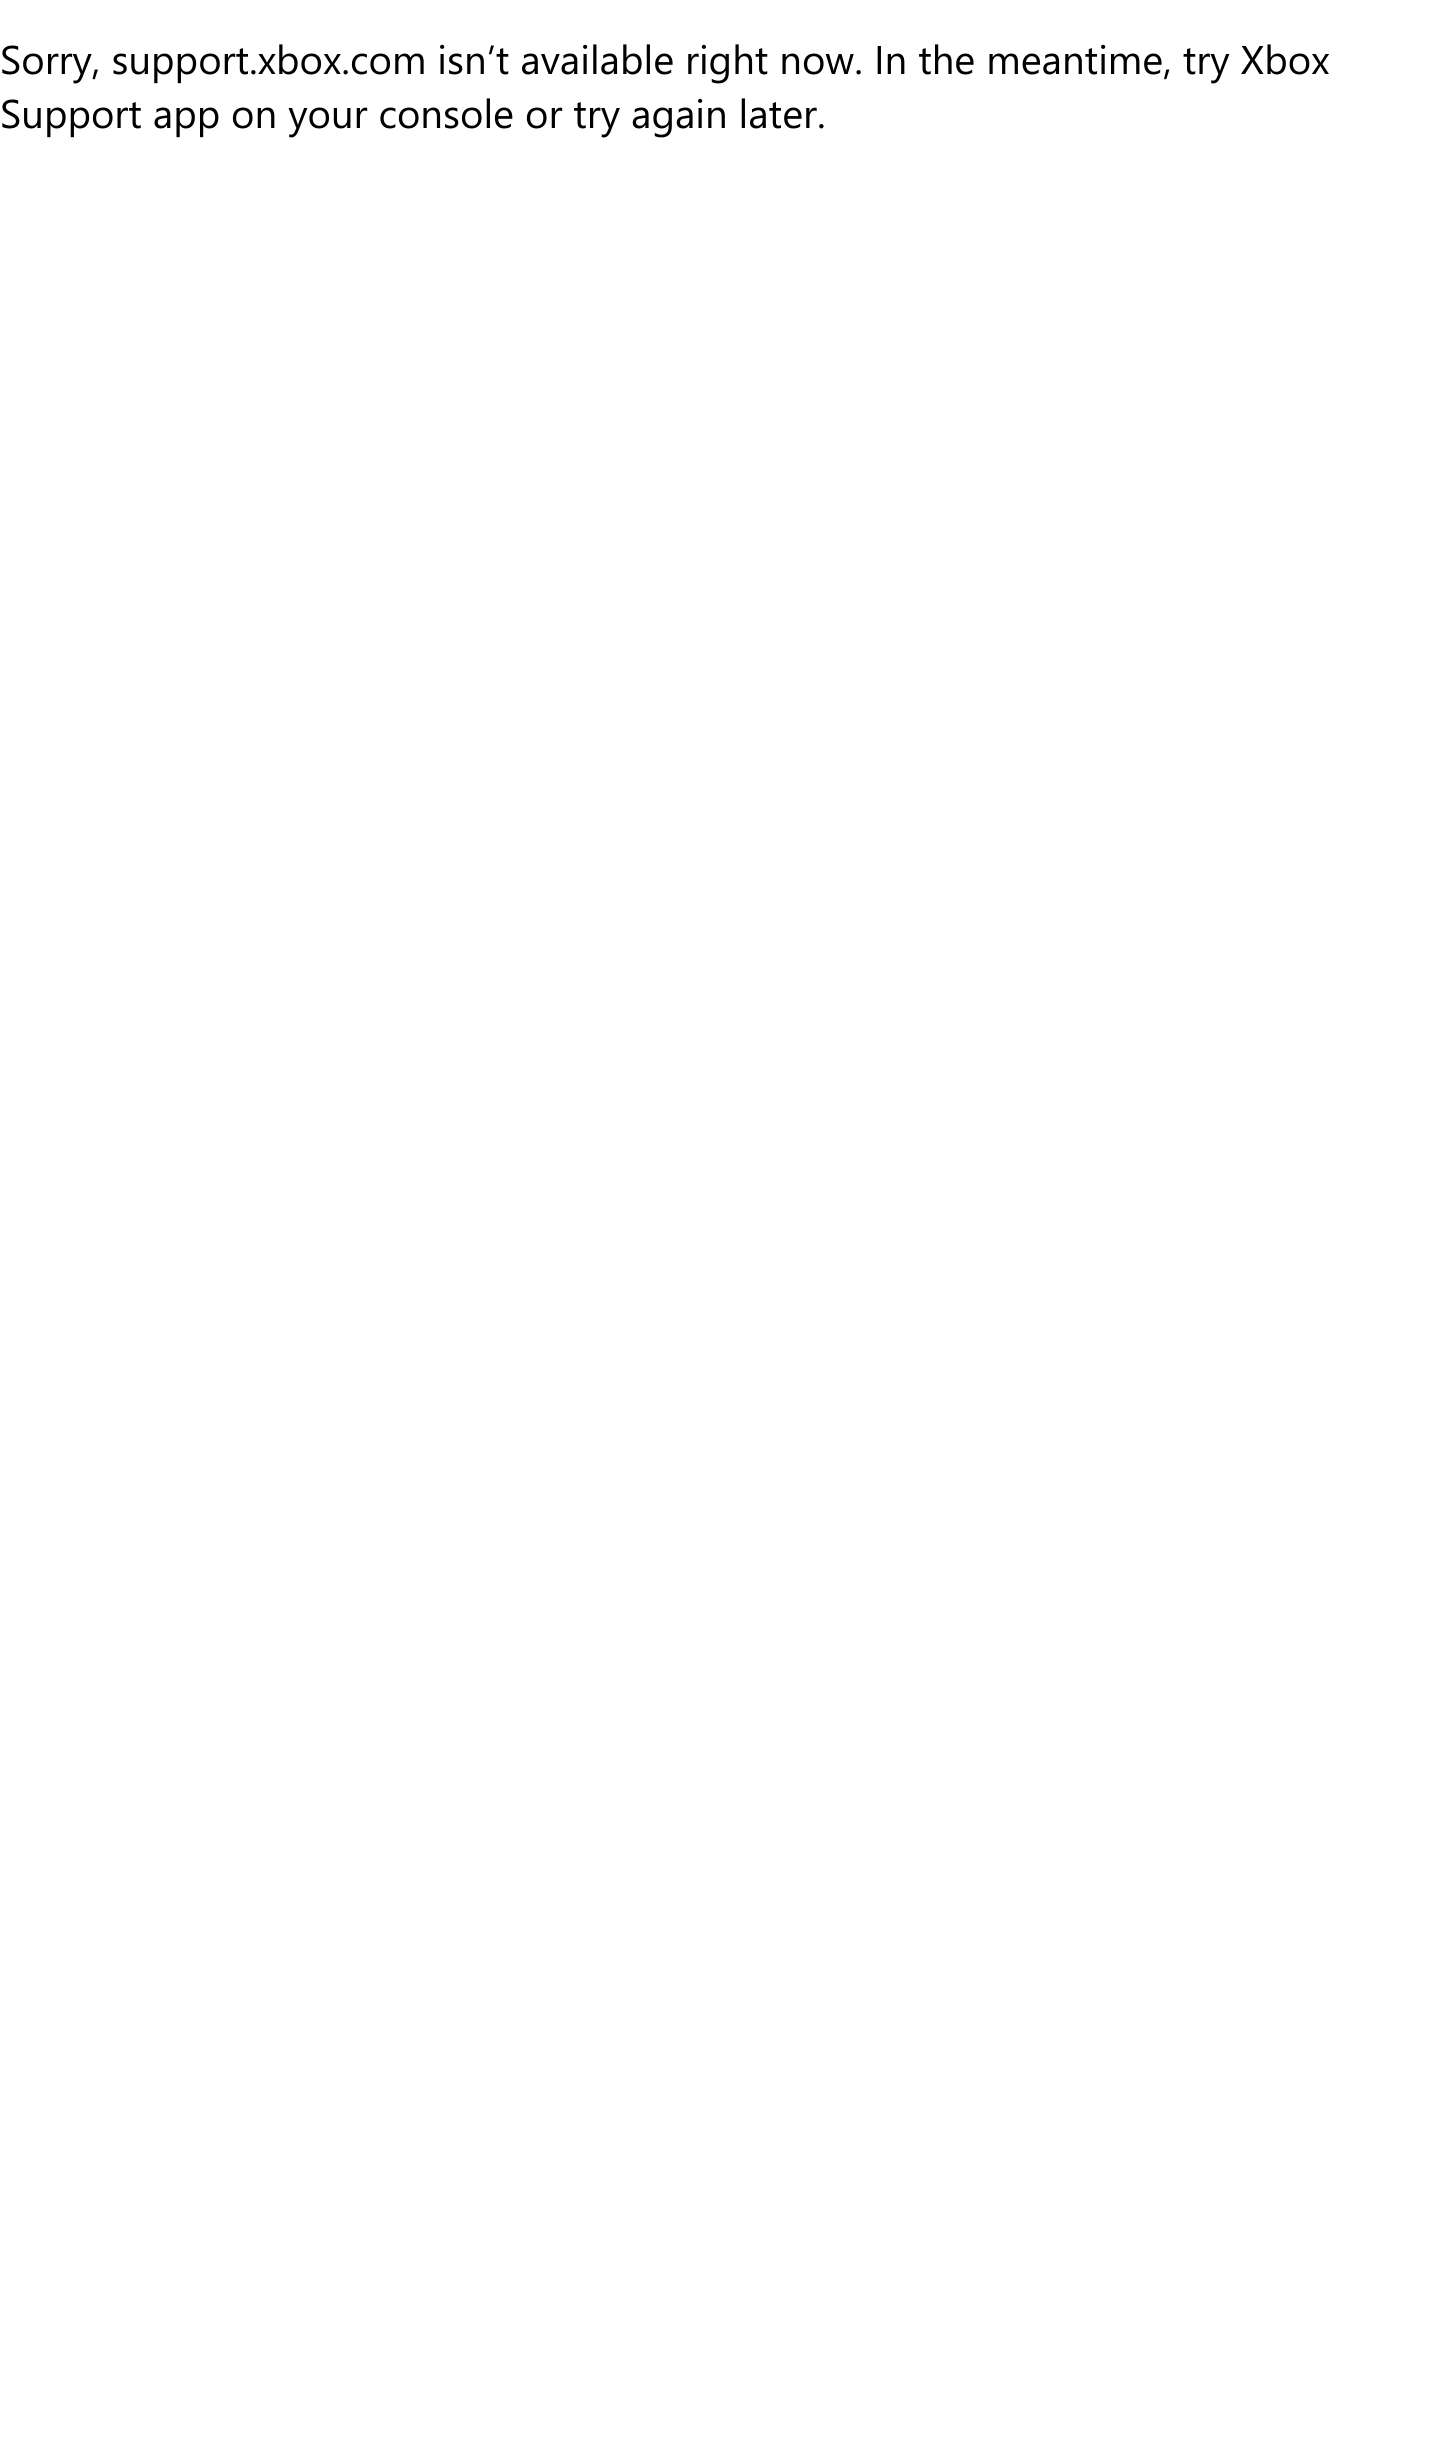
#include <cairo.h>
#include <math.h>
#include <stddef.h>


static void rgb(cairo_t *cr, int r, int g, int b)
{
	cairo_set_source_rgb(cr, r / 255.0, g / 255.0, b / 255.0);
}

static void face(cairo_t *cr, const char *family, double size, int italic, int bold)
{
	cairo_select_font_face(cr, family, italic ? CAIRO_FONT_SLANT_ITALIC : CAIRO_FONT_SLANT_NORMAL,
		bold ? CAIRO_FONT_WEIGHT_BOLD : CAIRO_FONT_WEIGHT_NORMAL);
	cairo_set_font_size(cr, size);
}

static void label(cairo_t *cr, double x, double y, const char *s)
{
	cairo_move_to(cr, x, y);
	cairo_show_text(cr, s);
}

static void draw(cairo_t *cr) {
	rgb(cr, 255, 255, 255);
	cairo_paint(cr);
	face(cr, "Segoe UI", 40, 0, 0);
	rgb(cr, 0, 0, 0);
	label(cr, 0, 74, "Sorry, support.xbox.com isn’t available right now. In the meantime, try Xbox");
	label(cr, 0, 128, "Support app on your console or try again later.");
}

int main(void) {
	cairo_surface_t *surface = cairo_image_surface_create(CAIRO_FORMAT_RGB24, 1429, 2460);
	cairo_t *cr = cairo_create(surface);
	cairo_font_options_t *options = cairo_font_options_create();
	cairo_font_options_set_hint_metrics(options, CAIRO_HINT_METRICS_OFF);
	cairo_font_options_set_hint_style(options, CAIRO_HINT_STYLE_NONE);
	cairo_set_font_options(cr, options);
	cairo_set_miter_limit(cr, 4);
	draw(cr);
	cairo_surface_write_to_png(surface, "render.png");
	cairo_font_options_destroy(options);
	cairo_destroy(cr);
	cairo_surface_destroy(surface);
	return 0;
}
